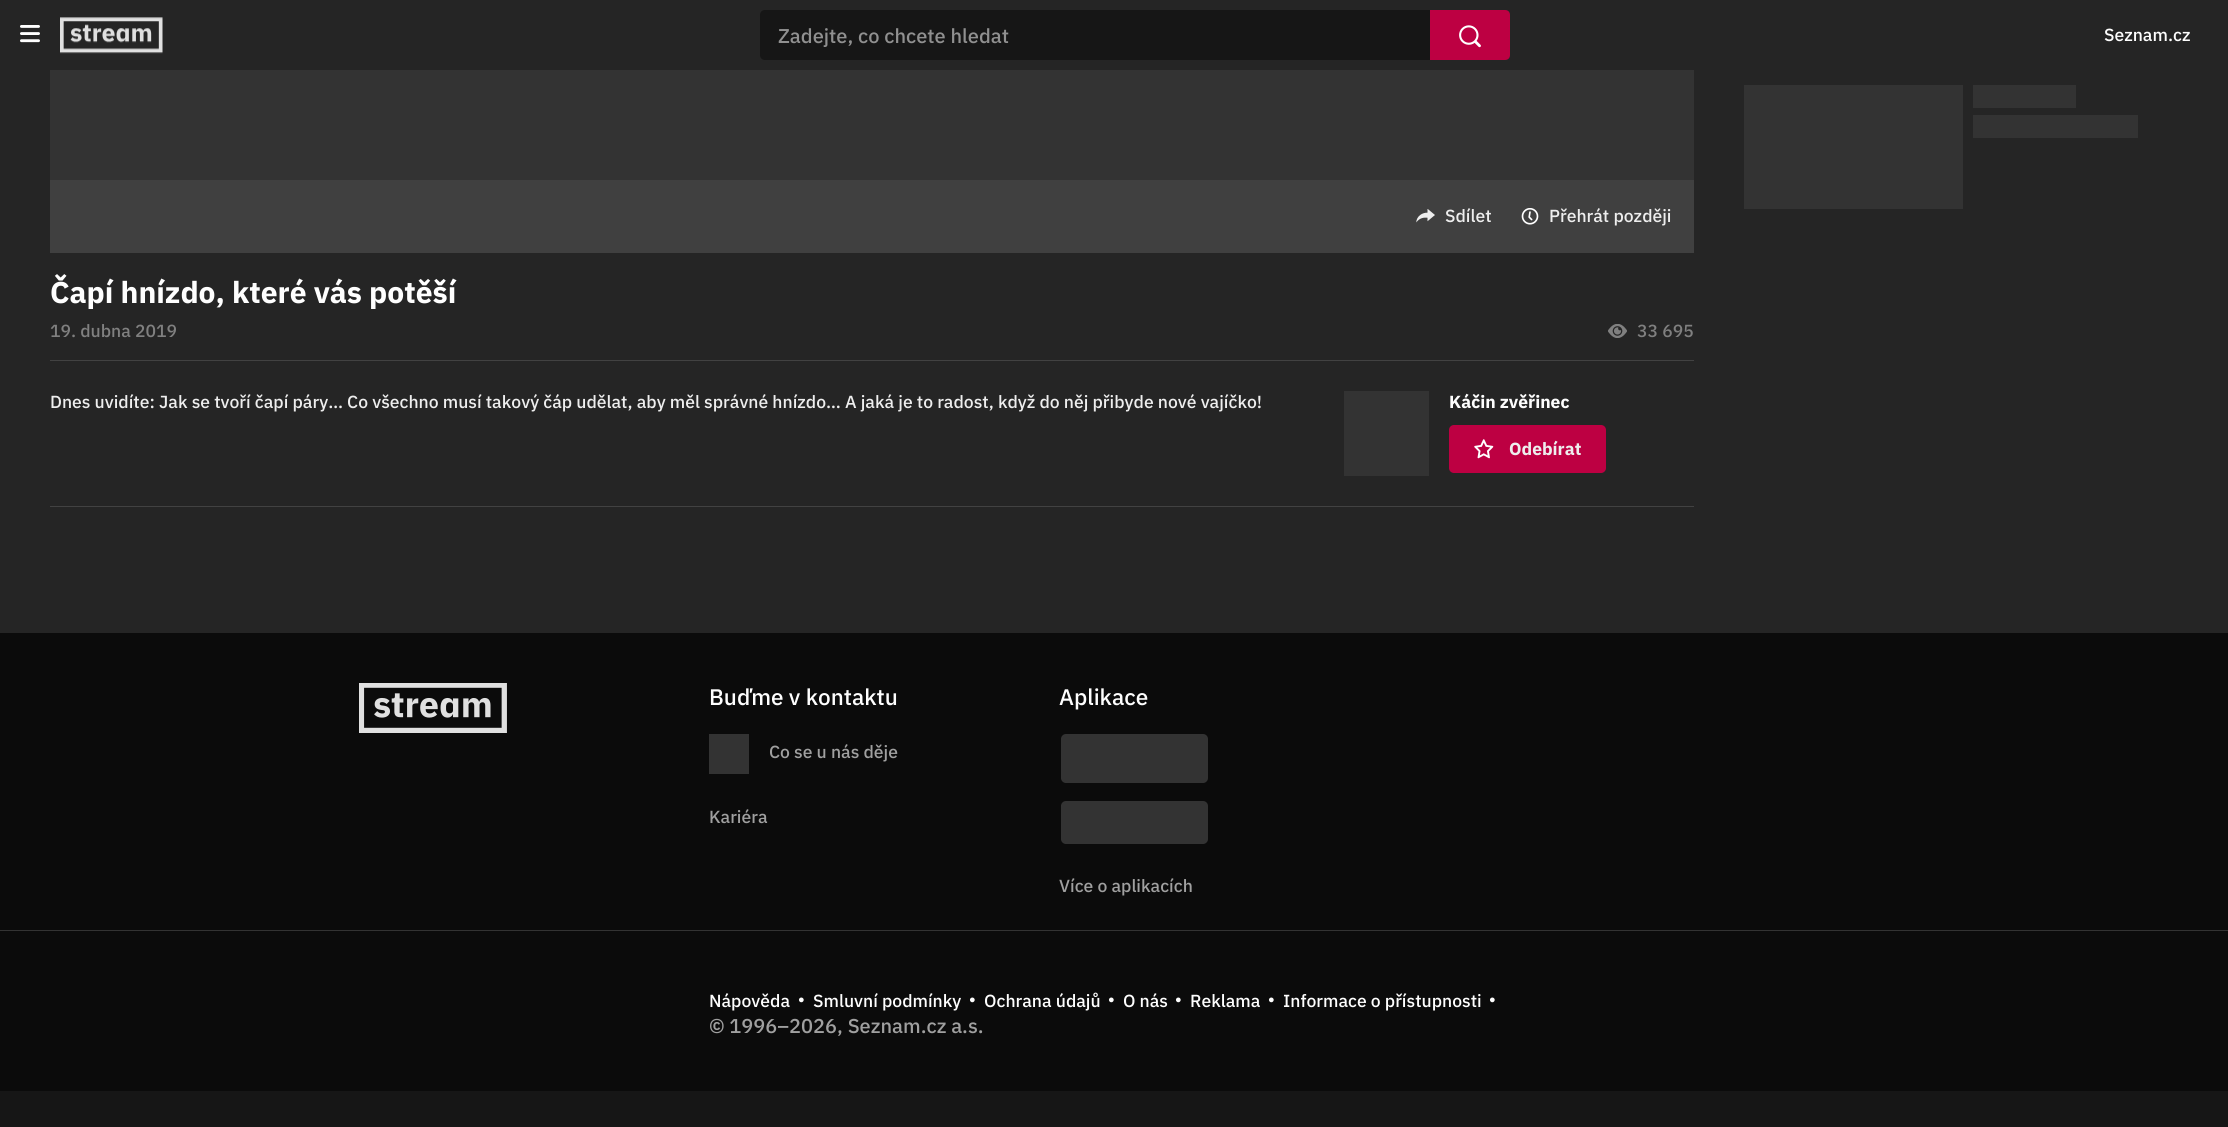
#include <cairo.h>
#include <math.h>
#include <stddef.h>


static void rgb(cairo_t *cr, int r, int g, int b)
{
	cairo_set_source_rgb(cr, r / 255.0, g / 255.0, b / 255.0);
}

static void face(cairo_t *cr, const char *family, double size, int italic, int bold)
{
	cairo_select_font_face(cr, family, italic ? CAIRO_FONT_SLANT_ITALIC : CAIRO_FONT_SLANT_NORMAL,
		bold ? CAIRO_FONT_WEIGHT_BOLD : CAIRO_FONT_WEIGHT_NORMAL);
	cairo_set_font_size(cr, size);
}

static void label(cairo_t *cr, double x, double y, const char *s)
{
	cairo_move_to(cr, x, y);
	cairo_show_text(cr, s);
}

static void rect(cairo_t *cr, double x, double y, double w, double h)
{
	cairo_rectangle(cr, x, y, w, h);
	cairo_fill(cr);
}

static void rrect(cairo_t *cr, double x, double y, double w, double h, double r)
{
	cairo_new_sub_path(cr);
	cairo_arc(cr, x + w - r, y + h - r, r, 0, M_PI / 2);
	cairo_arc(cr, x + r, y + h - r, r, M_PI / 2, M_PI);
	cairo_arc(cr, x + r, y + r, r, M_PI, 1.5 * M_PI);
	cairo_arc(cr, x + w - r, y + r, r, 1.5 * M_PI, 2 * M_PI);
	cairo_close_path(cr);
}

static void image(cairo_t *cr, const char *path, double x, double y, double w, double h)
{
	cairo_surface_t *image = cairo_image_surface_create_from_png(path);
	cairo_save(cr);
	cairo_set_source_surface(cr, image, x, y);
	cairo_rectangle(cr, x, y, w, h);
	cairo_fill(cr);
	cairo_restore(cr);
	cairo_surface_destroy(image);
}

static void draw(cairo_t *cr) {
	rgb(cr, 22, 22, 22);
	cairo_paint(cr);
	rgb(cr, 37, 37, 37);
	rect(cr, 0, 0, 2228, 633);
	image(cr, "image0.png", 20, 25, 20, 18);
	image(cr, "image1.png", 60, 17, 103, 37);
	rgb(cr, 22, 22, 22);
	cairo_new_path(cr);
	cairo_move_to(cr, 765, 10);
	cairo_line_to(cr, 1430, 10);
	cairo_line_to(cr, 1430, 60);
	cairo_line_to(cr, 765, 60);
	cairo_curve_to(cr, 762, 60, 760, 58, 760, 55);
	cairo_line_to(cr, 760, 15);
	cairo_curve_to(cr, 760, 12, 762, 10, 765, 10);
	cairo_close_path(cr);
	cairo_fill(cr);
	face(cr, "IBM Plex Sans Medium", 20, 0, 0);
	rgb(cr, 144, 144, 144);
	label(cr, 778, 43, "Zadejte, co chcete hledat");
	rgb(cr, 189, 0, 66);
	cairo_new_path(cr);
	cairo_move_to(cr, 1430, 10);
	cairo_line_to(cr, 1505, 10);
	cairo_curve_to(cr, 1508, 10, 1510, 12, 1510, 15);
	cairo_line_to(cr, 1510, 55);
	cairo_curve_to(cr, 1510, 58, 1508, 60, 1505, 60);
	cairo_line_to(cr, 1430, 60);
	cairo_close_path(cr);
	cairo_fill(cr);
	image(cr, "image2.png", 1459, 25, 22, 23);
	face(cr, "IBM Plex Sans Medium", 17.5, 0, 0);
	rgb(cr, 254, 254, 254);
	label(cr, 2104, 41, "Seznam.cz");
	rgb(cr, 51, 51, 51);
	rect(cr, 1744, 85, 219, 124);
	rect(cr, 1973, 85, 103, 23);
	rect(cr, 1973, 115, 165, 23);
	rect(cr, 50, 70, 1644, 110);
	rgb(cr, 64, 64, 64);
	rect(cr, 50, 180, 1644, 73);
	image(cr, "image3.png", 1416, 209, 19, 14);
	rgb(cr, 238, 238, 238);
	label(cr, 1445, 222, "Sdílet");
	image(cr, "image4.png", 1521, 208, 18, 17);
	label(cr, 1549, 222, "Přehrát později");
	face(cr, "IBM Plex Sans", 30, 0, 1);
	rgb(cr, 254, 254, 254);
	label(cr, 50, 303, "Čapí hnízdo, které vás potěší");
	rgb(cr, 66, 66, 66);
	rect(cr, 50, 360, 1644, 1);
	face(cr, "IBM Plex Sans Medium", 17.5, 0, 0);
	rgb(cr, 128, 128, 128);
	label(cr, 50, 337, "19. dubna 2019");
	image(cr, "image5.png", 1608, 324, 19, 14);
	label(cr, 1637, 337, "33 695");
	rgb(cr, 66, 66, 66);
	rect(cr, 50, 506, 1644, 1);
	rgb(cr, 238, 238, 238);
	label(cr, 50, 408, "Dnes uvidíte: Jak se tvoří čapí páry… Co všechno musí takový čáp udělat, aby měl správné hnízdo… A jaká je to radost, když do něj přibyde nové vajíčko!");
	rgb(cr, 51, 51, 51);
	rect(cr, 1344, 391, 85, 85);
	face(cr, "IBM Plex Sans", 17.5, 0, 1);
	rgb(cr, 254, 254, 254);
	label(cr, 1449, 408, "Káčin zvěřinec");
	rgb(cr, 189, 0, 66);
	rrect(cr, 1449, 425, 157, 48, 5);
	cairo_fill(cr);
	image(cr, "image6.png", 1474, 439, 20, 20);
	rgb(cr, 238, 238, 238);
	label(cr, 1509, 455, "Odebírat");
	rgb(cr, 11, 11, 11);
	rect(cr, 0, 633, 2228, 458);
	rgb(cr, 51, 51, 51);
	rect(cr, 0, 930, 2228, 1);
	image(cr, "image7.png", 359, 683, 148, 50);
	face(cr, "IBM Plex Sans Medium", 22.5, 0, 0);
	rgb(cr, 254, 254, 254);
	label(cr, 709, 705, "Buďme v kontaktu");
	rgb(cr, 51, 51, 51);
	rect(cr, 709, 734, 40, 40);
	face(cr, "IBM Plex Sans Medium", 17.5, 0, 0);
	rgb(cr, 160, 160, 160);
	label(cr, 769, 758, "Co se u nás děje");
	label(cr, 709, 823, "Kariéra");
	face(cr, "IBM Plex Sans Medium", 22.5, 0, 0);
	rgb(cr, 254, 254, 254);
	label(cr, 1059, 705, "Aplikace");
	rgb(cr, 51, 51, 51);
	rrect(cr, 1061, 734, 147, 49, 5);
	cairo_fill(cr);
	rrect(cr, 1061, 801, 147, 43, 5);
	cairo_fill(cr);
	face(cr, "IBM Plex Sans Medium", 17.5, 0, 0);
	rgb(cr, 160, 160, 160);
	label(cr, 1059, 892, "Více o aplikacích");
	rgb(cr, 254, 254, 254);
	label(cr, 709, 1007, "Nápověda");
	face(cr, "Liberation Sans", 11, 0, 0);
	label(cr, 798, 1003, "●");
	face(cr, "IBM Plex Sans Medium", 17.5, 0, 0);
	label(cr, 813, 1007, "Smluvní podmínky");
	face(cr, "Liberation Sans", 11, 0, 0);
	label(cr, 969, 1003, "●");
	face(cr, "IBM Plex Sans Medium", 17.5, 0, 0);
	label(cr, 984, 1007, "Ochrana údajů");
	face(cr, "Liberation Sans", 11, 0, 0);
	label(cr, 1108, 1003, "●");
	face(cr, "IBM Plex Sans Medium", 17.5, 0, 0);
	label(cr, 1123, 1007, "O nás");
	face(cr, "Liberation Sans", 11, 0, 0);
	label(cr, 1175, 1003, "●");
	face(cr, "IBM Plex Sans Medium", 17.5, 0, 0);
	label(cr, 1190, 1007, "Reklama");
	face(cr, "Liberation Sans", 11, 0, 0);
	label(cr, 1268, 1003, "●");
	face(cr, "IBM Plex Sans Medium", 17.5, 0, 0);
	label(cr, 1283, 1007, "Informace o přístupnosti");
	face(cr, "Liberation Sans", 11, 0, 0);
	label(cr, 1489, 1003, "●");
	face(cr, "IBM Plex Sans Medium", 20, 0, 0);
	rgb(cr, 160, 160, 160);
	label(cr, 709, 1033, "© 1996–2026, Seznam.cz a.s.");
}

int main(void) {
	cairo_surface_t *surface = cairo_image_surface_create(CAIRO_FORMAT_RGB24, 2228, 1127);
	cairo_t *cr = cairo_create(surface);
	cairo_font_options_t *options = cairo_font_options_create();
	cairo_font_options_set_hint_metrics(options, CAIRO_HINT_METRICS_OFF);
	cairo_font_options_set_hint_style(options, CAIRO_HINT_STYLE_NONE);
	cairo_set_font_options(cr, options);
	cairo_set_miter_limit(cr, 4);
	draw(cr);
	cairo_surface_write_to_png(surface, "render.png");
	cairo_font_options_destroy(options);
	cairo_destroy(cr);
	cairo_surface_destroy(surface);
	return 0;
}
